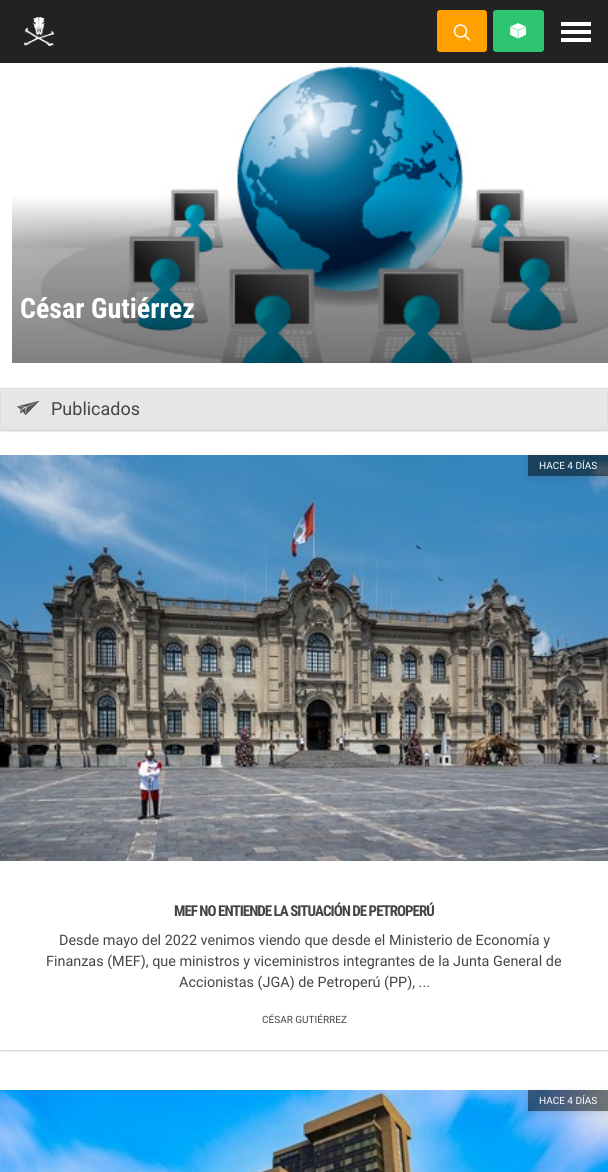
#include <cairo.h>
#include <math.h>
#include <stddef.h>


static void rgb(cairo_t *cr, int r, int g, int b)
{
	cairo_set_source_rgb(cr, r / 255.0, g / 255.0, b / 255.0);
}

static void face(cairo_t *cr, const char *family, double size, int italic, int bold)
{
	cairo_select_font_face(cr, family, italic ? CAIRO_FONT_SLANT_ITALIC : CAIRO_FONT_SLANT_NORMAL,
		bold ? CAIRO_FONT_WEIGHT_BOLD : CAIRO_FONT_WEIGHT_NORMAL);
	cairo_set_font_size(cr, size);
}

static void label(cairo_t *cr, double x, double y, const char *s)
{
	cairo_move_to(cr, x, y);
	cairo_show_text(cr, s);
}

static void tracked(cairo_t *cr, double x, double y, const char *s, double letter, double word)
{
	cairo_move_to(cr, x, y);
	while (*s) {
		char ch[5] = {0};
		int n = 0;
		do ch[n++] = *s++; while ((*s & 0xC0) == 0x80);
		cairo_show_text(cr, ch);
		cairo_rel_move_to(cr, letter + word * (*ch == ' '), 0);
	}
}

static void rect(cairo_t *cr, double x, double y, double w, double h)
{
	cairo_rectangle(cr, x, y, w, h);
	cairo_fill(cr);
}

static void rrect(cairo_t *cr, double x, double y, double w, double h, double r)
{
	cairo_new_sub_path(cr);
	cairo_arc(cr, x + w - r, y + h - r, r, 0, M_PI / 2);
	cairo_arc(cr, x + r, y + h - r, r, M_PI / 2, M_PI);
	cairo_arc(cr, x + r, y + r, r, M_PI, 1.5 * M_PI);
	cairo_arc(cr, x + w - r, y + r, r, 1.5 * M_PI, 2 * M_PI);
	cairo_close_path(cr);
}

static void soft_shadow(cairo_t *cr, double x, double y, double w, double h, double r, double blur, double alpha)
{
	cairo_push_group_with_content(cr, CAIRO_CONTENT_ALPHA);
	cairo_set_operator(cr, CAIRO_OPERATOR_SOURCE);
	for (int i = 15; i >= -15 && fmin(w, h) + blur * i / 3 > 0; i -= 2) {
		double e = blur * i / 6;
		cairo_set_source_rgba(cr, 0, 0, 0, alpha * erfc((i - 1) / 8.5) / 2);
		rrect(cr, x - e, y - e, w + 2 * e, h + 2 * e, fmax(0, fmin(r + e + blur * .6, fmin(w, h) / 2 + e)));
		cairo_fill(cr);
	}
	cairo_pattern_t *soft = cairo_pop_group(cr);
	cairo_mask(cr, soft);
	cairo_pattern_destroy(soft);
}

static void image(cairo_t *cr, const char *path, double x, double y, double w, double h)
{
	cairo_surface_t *image = cairo_image_surface_create_from_png(path);
	cairo_save(cr);
	cairo_set_source_surface(cr, image, x, y);
	cairo_rectangle(cr, x, y, w, h);
	cairo_fill(cr);
	cairo_restore(cr);
	cairo_surface_destroy(image);
}

static void draw(cairo_t *cr) {
	rgb(cr, 255, 255, 255);
	cairo_paint(cr);
	rgb(cr, 34, 34, 34);
	rect(cr, 0, 0, 608, 63);
	image(cr, "image0.png", 24, 17, 30, 29);
	rgb(cr, 255, 160, 0);
	rrect(cr, 437, 10, 50, 42, 3);
	cairo_fill(cr);
	image(cr, "image1.png", 453, 24, 18, 17);
	rgb(cr, 46, 197, 113);
	rrect(cr, 493, 10, 51, 42, 3);
	cairo_fill(cr);
	image(cr, "image2.png", 510, 23, 16, 16);
	rgb(cr, 255, 255, 255);
	rect(cr, 561, 22, 30, 4);
	rect(cr, 561, 30, 30, 4);
	rect(cr, 561, 38, 30, 4);
	image(cr, "image3.png", 12, 63, 596, 300);
	face(cr, "Roboto Condensed", 28, 0, 1);
	label(cr, 20, 318, "César Gutiérrez");
	rgb(cr, 0, 0, 0);
	soft_shadow(cr, 0, 389, 608, 42, 0, 1, 0.2);
	rgb(cr, 230, 230, 230);
	cairo_rectangle(cr, 0.5, 388.5, 607, 41);
	cairo_fill_preserve(cr);
	rgb(cr, 222, 222, 222);
	cairo_set_line_width(cr, 1);
	cairo_stroke(cr);
	image(cr, "image4.png", 17, 400, 22, 16);
	face(cr, "Roboto", 18, 0, 0);
	rgb(cr, 68, 68, 68);
	label(cr, 51, 415, "Publicados");
	cairo_save(cr);
	cairo_rectangle(cr, 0, 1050, 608, 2);
	cairo_clip(cr);
	rgb(cr, 0, 0, 0);
	soft_shadow(cr, 0, 456, 608, 595, 0, 1, 0.2);
	cairo_restore(cr);
	image(cr, "image5.png", 0, 455, 608, 406);
	cairo_save(cr);
	cairo_set_fill_rule(cr, CAIRO_FILL_RULE_EVEN_ODD);
	cairo_new_path(cr);
	cairo_move_to(cr, 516, 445);
	cairo_line_to(cr, 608, 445);
	cairo_line_to(cr, 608, 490);
	cairo_line_to(cr, 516, 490);
	cairo_close_path(cr);
	cairo_move_to(cr, 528, 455);
	cairo_line_to(cr, 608, 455);
	cairo_line_to(cr, 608, 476);
	cairo_line_to(cr, 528, 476);
	cairo_close_path(cr);
	cairo_clip(cr);
	rgb(cr, 0, 0, 0);
	soft_shadow(cr, 528, 457, 80, 21, 0, 3.5, 0.1);
	cairo_restore(cr);
	cairo_set_source_rgba(cr, 0, 0, 0, 0.5);
	rect(cr, 528, 455, 80, 21);
	face(cr, "Roboto", 10, 0, 0);
	rgb(cr, 255, 255, 255);
	label(cr, 539, 469, "HACE 4 DÍAS");
	face(cr, "Roboto Condensed", 15, 0, 1);
	rgb(cr, 68, 68, 68);
	tracked(cr, 174, 916, "MEF NO ENTIENDE LA SITUACIÓN DE PETROPERÚ", -1, 0);
	face(cr, "Roboto", 14.4, 0, 0);
	label(cr, 59, 945, "Desde mayo del 2022 venimos viendo que desde el Ministerio de Economía y");
	label(cr, 46, 966, "Finanzas (MEF), que ministros y viceministros integrantes de la Junta General de");
	label(cr, 179, 987, "Accionistas (JGA) de Petroperú (PP), ...");
	face(cr, "Roboto", 10, 0, 0);
	label(cr, 262, 1023, "CÉSAR GUTIÉRREZ");
	image(cr, "image6.png", 0, 1090, 608, 82);
	cairo_save(cr);
	cairo_set_fill_rule(cr, CAIRO_FILL_RULE_EVEN_ODD);
	cairo_new_path(cr);
	cairo_move_to(cr, 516, 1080);
	cairo_line_to(cr, 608, 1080);
	cairo_line_to(cr, 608, 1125);
	cairo_line_to(cr, 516, 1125);
	cairo_close_path(cr);
	cairo_move_to(cr, 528, 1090);
	cairo_line_to(cr, 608, 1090);
	cairo_line_to(cr, 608, 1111);
	cairo_line_to(cr, 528, 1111);
	cairo_close_path(cr);
	cairo_clip(cr);
	rgb(cr, 0, 0, 0);
	soft_shadow(cr, 528, 1092, 80, 21, 0, 3.5, 0.1);
	cairo_restore(cr);
	cairo_set_source_rgba(cr, 0, 0, 0, 0.5);
	rect(cr, 528, 1090, 80, 21);
	rgb(cr, 255, 255, 255);
	label(cr, 539, 1104, "HACE 4 DÍAS");
}

int main(void) {
	cairo_surface_t *surface = cairo_image_surface_create(CAIRO_FORMAT_RGB24, 608, 1172);
	cairo_t *cr = cairo_create(surface);
	cairo_font_options_t *options = cairo_font_options_create();
	cairo_font_options_set_hint_metrics(options, CAIRO_HINT_METRICS_OFF);
	cairo_font_options_set_hint_style(options, CAIRO_HINT_STYLE_NONE);
	cairo_set_font_options(cr, options);
	cairo_set_miter_limit(cr, 4);
	draw(cr);
	cairo_surface_write_to_png(surface, "render.png");
	cairo_font_options_destroy(options);
	cairo_destroy(cr);
	cairo_surface_destroy(surface);
	return 0;
}
